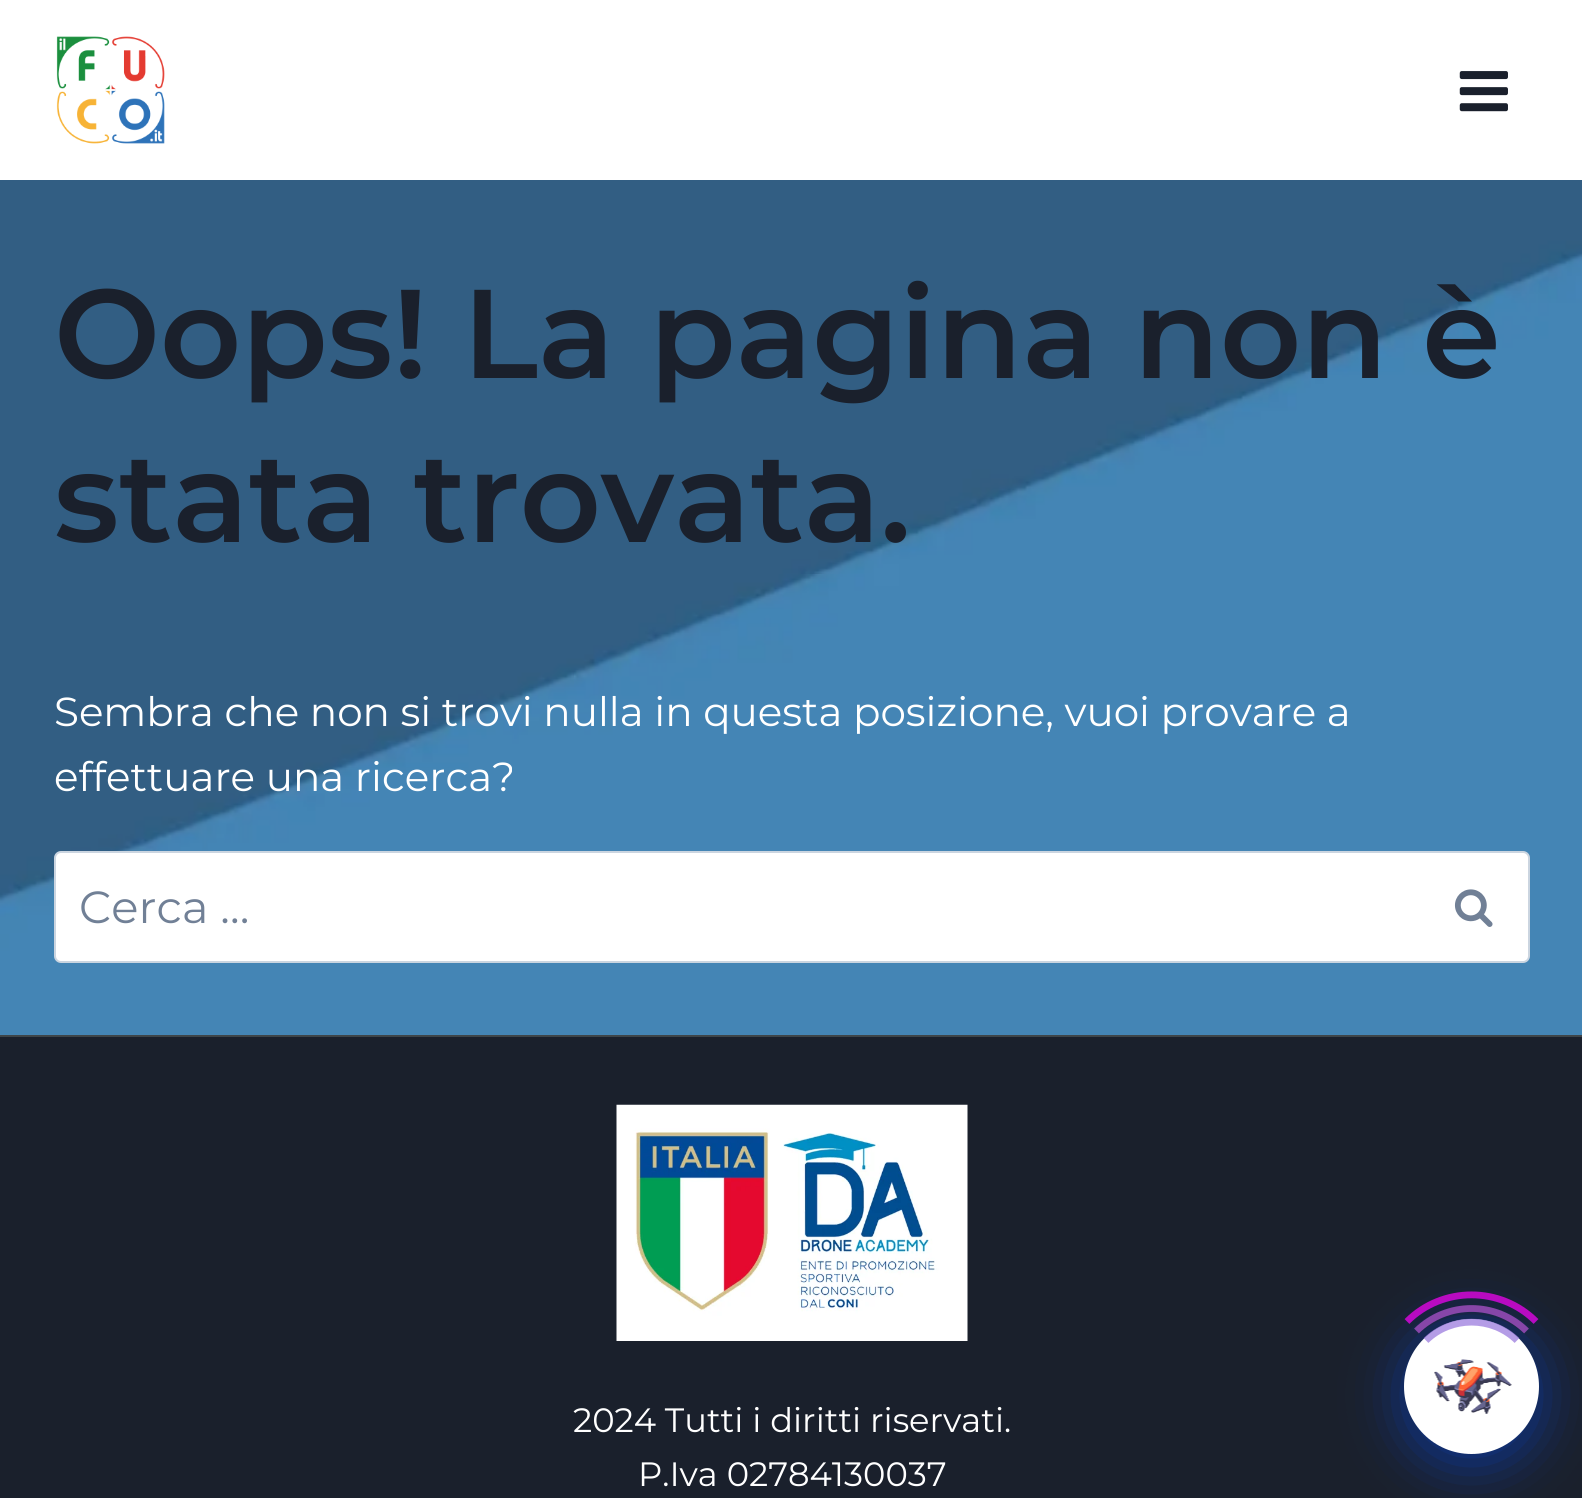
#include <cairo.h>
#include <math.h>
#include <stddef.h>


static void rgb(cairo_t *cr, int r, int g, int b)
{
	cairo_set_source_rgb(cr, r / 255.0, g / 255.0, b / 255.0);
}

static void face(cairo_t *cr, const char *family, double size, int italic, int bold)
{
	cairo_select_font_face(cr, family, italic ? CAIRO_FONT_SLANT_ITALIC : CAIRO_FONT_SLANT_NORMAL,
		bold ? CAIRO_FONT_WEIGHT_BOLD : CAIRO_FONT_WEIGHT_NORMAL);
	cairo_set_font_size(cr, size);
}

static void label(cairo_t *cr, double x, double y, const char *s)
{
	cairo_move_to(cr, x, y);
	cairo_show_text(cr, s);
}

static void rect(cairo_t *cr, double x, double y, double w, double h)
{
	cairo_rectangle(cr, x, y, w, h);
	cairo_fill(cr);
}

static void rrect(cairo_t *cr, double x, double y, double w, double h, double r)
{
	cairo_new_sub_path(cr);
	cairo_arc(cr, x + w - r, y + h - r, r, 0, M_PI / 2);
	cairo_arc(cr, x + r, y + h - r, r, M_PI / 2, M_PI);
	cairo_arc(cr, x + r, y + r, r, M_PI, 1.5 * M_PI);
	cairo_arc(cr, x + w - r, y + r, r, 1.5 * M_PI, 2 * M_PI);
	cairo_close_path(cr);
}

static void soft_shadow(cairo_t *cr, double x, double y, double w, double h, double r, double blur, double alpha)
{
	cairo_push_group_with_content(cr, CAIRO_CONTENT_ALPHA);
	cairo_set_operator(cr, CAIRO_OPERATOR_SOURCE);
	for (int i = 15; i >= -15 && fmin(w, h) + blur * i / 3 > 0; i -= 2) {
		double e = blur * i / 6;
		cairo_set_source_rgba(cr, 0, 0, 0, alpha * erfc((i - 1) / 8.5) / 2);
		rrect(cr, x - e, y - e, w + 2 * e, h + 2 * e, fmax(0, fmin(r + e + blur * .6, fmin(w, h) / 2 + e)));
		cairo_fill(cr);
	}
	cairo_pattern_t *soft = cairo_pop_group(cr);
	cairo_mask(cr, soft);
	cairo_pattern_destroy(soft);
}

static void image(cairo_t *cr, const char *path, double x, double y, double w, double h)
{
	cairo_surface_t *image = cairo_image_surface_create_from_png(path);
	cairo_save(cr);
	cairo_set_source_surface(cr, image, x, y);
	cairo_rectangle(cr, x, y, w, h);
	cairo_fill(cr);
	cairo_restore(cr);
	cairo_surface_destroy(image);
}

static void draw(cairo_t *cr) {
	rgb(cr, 255, 255, 255);
	cairo_paint(cr);
	image(cr, "image0.png", 0, 180, 1582, 855);
	image(cr, "image1.png", 56, 36, 109, 108);
	image(cr, "image2.png", 1459, 71, 49, 41);
	face(cr, "Montserrat SemiBold", 126, 0, 0);
	rgb(cr, 26, 32, 44);
	label(cr, 54, 378, "Oops! La pagina non è");
	label(cr, 54, 542, "stata trovata.");
	face(cr, "Montserrat", 40.5, 0, 0);
	rgb(cr, 255, 255, 255);
	label(cr, 54, 726, "Sembra che non si trovi nulla in questa posizione, vuoi provare a");
	label(cr, 54, 791, "effettuare una ricerca?");
	rrect(cr, 55, 852, 1474, 110, 6);
	cairo_fill_preserve(cr);
	rgb(cr, 203, 213, 224);
	cairo_stroke(cr);
	face(cr, "Montserrat", 45, 0, 0);
	rgb(cr, 113, 128, 150);
	label(cr, 79, 923, "Cerca …");
	image(cr, "image3.png", 1454, 889, 39, 38);
	rgb(cr, 26, 32, 44);
	rect(cr, 0, 1037, 1582, 461);
	rgb(cr, 62, 69, 73);
	rect(cr, 0, 1035, 1582, 2);
	image(cr, "image4.png", 616, 1104, 352, 237);
	face(cr, "Montserrat", 33.75, 0, 0);
	rgb(cr, 255, 255, 255);
	label(cr, 573, 1432, "2024 Tutti i diritti riservati.");
	label(cr, 638, 1486, "P.Iva 02784130037");
	rgb(cr, 0, 77, 255);
	soft_shadow(cr, 1404, 1328, 135, 135, 67.5, 27, 0.5);
	rgb(cr, 255, 255, 255);
	cairo_arc(cr, 1471.5, 1386.5, 67.5, 0, 2 * M_PI);
	cairo_fill(cr);
	cairo_new_path(cr);
	cairo_move_to(cr, 1426, 1340.5);
	cairo_curve_to(cr, 1451, 1316, 1492, 1316, 1517, 1340.5);
	cairo_set_source_rgba(cr, 0.576, 0.439, 0.859, 0.69);
	cairo_set_line_width(cr, 6.8);
	cairo_stroke(cr);
	cairo_new_path(cr);
	cairo_move_to(cr, 1416.5, 1331);
	cairo_curve_to(cr, 1447, 1301, 1496, 1301, 1526.5, 1331);
	cairo_set_source_rgba(cr, 0.729, 0.333, 0.827, 0.69);
	cairo_stroke(cr);
	cairo_new_path(cr);
	cairo_move_to(cr, 1407, 1321.5);
	cairo_curve_to(cr, 1442.5, 1286, 1500.5, 1286, 1536, 1321.5);
	cairo_set_source_rgba(cr, 1, 0, 1, 0.69);
	cairo_stroke(cr);
	image(cr, "image5.png", 1434, 1359, 78, 55);
}

int main(void) {
	cairo_surface_t *surface = cairo_image_surface_create(CAIRO_FORMAT_RGB24, 1582, 1498);
	cairo_t *cr = cairo_create(surface);
	cairo_font_options_t *options = cairo_font_options_create();
	cairo_font_options_set_hint_metrics(options, CAIRO_HINT_METRICS_OFF);
	cairo_font_options_set_hint_style(options, CAIRO_HINT_STYLE_NONE);
	cairo_set_font_options(cr, options);
	cairo_set_miter_limit(cr, 4);
	draw(cr);
	cairo_surface_write_to_png(surface, "render.png");
	cairo_font_options_destroy(options);
	cairo_destroy(cr);
	cairo_surface_destroy(surface);
	return 0;
}
